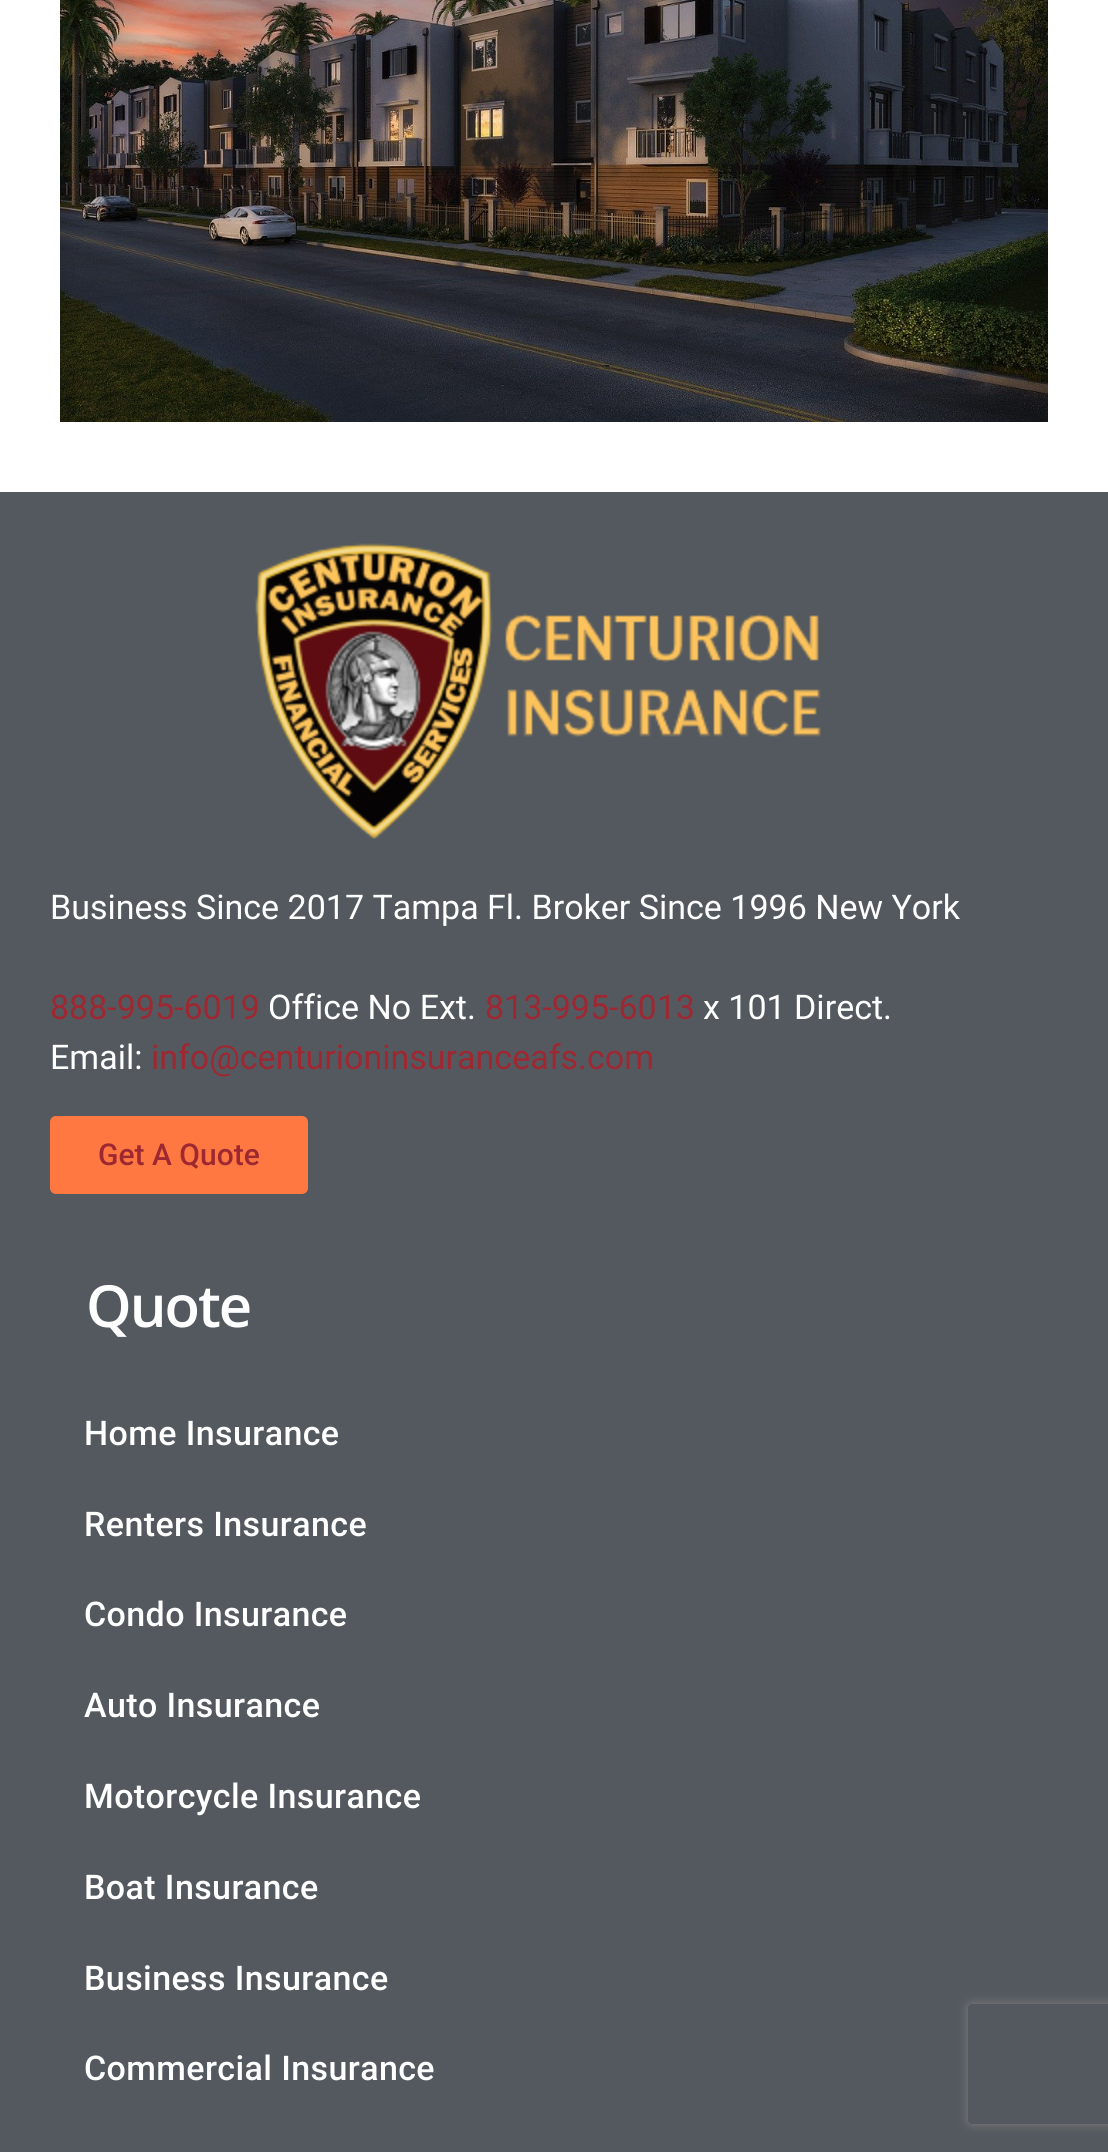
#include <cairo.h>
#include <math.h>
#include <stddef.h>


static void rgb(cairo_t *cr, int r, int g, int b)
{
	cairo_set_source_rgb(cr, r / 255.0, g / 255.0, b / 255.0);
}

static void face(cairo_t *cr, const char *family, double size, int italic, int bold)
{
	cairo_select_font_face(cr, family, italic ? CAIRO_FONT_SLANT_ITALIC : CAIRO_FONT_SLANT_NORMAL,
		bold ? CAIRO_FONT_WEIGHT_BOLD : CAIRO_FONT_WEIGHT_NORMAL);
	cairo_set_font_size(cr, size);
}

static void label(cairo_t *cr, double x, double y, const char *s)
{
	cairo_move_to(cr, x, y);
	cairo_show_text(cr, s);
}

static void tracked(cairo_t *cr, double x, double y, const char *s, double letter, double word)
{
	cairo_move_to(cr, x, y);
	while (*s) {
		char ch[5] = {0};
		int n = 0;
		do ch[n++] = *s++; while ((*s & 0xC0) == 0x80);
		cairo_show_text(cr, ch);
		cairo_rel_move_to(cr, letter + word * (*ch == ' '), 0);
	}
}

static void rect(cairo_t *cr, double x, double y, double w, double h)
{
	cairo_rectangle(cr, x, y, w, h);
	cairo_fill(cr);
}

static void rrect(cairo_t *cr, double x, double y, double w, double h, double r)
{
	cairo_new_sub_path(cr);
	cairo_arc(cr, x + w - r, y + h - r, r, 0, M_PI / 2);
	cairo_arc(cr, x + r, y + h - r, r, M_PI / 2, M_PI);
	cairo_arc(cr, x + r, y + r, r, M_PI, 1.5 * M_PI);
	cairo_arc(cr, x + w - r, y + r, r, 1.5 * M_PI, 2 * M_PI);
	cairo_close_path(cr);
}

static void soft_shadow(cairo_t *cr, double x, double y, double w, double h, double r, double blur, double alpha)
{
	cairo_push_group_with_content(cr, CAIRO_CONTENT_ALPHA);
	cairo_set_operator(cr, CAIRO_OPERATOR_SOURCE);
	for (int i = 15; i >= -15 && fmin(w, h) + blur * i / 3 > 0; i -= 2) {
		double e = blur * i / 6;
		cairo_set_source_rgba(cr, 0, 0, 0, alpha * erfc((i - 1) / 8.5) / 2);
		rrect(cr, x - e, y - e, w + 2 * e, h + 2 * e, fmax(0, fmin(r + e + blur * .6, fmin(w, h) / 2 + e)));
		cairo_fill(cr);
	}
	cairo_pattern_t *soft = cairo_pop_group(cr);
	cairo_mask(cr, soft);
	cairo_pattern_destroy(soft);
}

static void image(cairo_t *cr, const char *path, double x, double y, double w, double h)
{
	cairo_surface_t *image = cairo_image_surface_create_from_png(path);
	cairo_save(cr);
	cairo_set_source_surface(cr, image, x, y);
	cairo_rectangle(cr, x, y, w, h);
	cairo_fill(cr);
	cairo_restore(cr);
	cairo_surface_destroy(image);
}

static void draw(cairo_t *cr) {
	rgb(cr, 255, 255, 255);
	cairo_paint(cr);
	image(cr, "image0.png", 60, 0, 988, 422);
	rgb(cr, 84, 89, 95);
	rect(cr, 0, 492, 1108, 1660);
	image(cr, "image1.png", 255, 543, 566, 296);
	face(cr, "Roboto", 34, 0, 0);
	rgb(cr, 255, 255, 255);
	label(cr, 50, 919, "Business Since 2017 Tampa Fl. Broker Since 1996 New York");
	rgb(cr, 158, 40, 50);
	label(cr, 50, 1019, "888-995-6019");
	rgb(cr, 255, 255, 255);
	label(cr, 268, 1019, "Office No Ext.");
	rgb(cr, 158, 40, 50);
	label(cr, 485, 1019, "813-995-6013");
	rgb(cr, 255, 255, 255);
	label(cr, 703, 1019, "x 101 Direct.");
	label(cr, 50, 1069, "Email:");
	rgb(cr, 158, 40, 50);
	label(cr, 151, 1069, "info@centurioninsuranceafs.com");
	rgb(cr, 255, 120, 65);
	rrect(cr, 50, 1116, 258, 78, 6);
	cairo_fill(cr);
	face(cr, "Roboto Medium", 30, 0, 0);
	rgb(cr, 158, 40, 50);
	label(cr, 98, 1165, "Get A Quote");
	face(cr, "Open Sans SemiBold", 58, 0, 0);
	rgb(cr, 255, 255, 255);
	tracked(cr, 86, 1327, "Quote", -2, 0);
	face(cr, "Roboto Medium", 34, 0, 0);
	tracked(cr, 84, 1445, "Home Insurance", 0.4, 0);
	tracked(cr, 84, 1536, "Renters Insurance", 0.4, 0);
	tracked(cr, 84, 1626, "Condo Insurance", 0.4, 0);
	tracked(cr, 84, 1717, "Auto Insurance", 0.4, 0);
	tracked(cr, 84, 1808, "Motorcycle Insurance", 0.4, 0);
	tracked(cr, 84, 1899, "Boat Insurance", 0.4, 0);
	tracked(cr, 84, 1990, "Business Insurance", 0.4, 0);
	tracked(cr, 84, 2080, "Commercial Insurance", 0.4, 0);
	cairo_save(cr);
	cairo_set_fill_rule(cr, CAIRO_FILL_RULE_EVEN_ODD);
	cairo_new_path(cr);
	cairo_move_to(cr, 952, 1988);
	cairo_line_to(cr, 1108, 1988);
	cairo_line_to(cr, 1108, 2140);
	cairo_line_to(cr, 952, 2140);
	cairo_close_path(cr);
	cairo_move_to(cr, 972, 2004);
	cairo_line_to(cr, 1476, 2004);
	cairo_curve_to(cr, 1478, 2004, 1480, 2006, 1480, 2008);
	cairo_line_to(cr, 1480, 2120);
	cairo_curve_to(cr, 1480, 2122, 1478, 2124, 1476, 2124);
	cairo_line_to(cr, 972, 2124);
	cairo_curve_to(cr, 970, 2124, 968, 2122, 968, 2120);
	cairo_line_to(cr, 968, 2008);
	cairo_curve_to(cr, 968, 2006, 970, 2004, 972, 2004);
	cairo_close_path(cr);
	cairo_clip(cr);
	rgb(cr, 128, 128, 128);
	soft_shadow(cr, 968, 2004, 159, 120, 4, 5, 1);
	cairo_restore(cr);
}

int main(void) {
	cairo_surface_t *surface = cairo_image_surface_create(CAIRO_FORMAT_RGB24, 1108, 2152);
	cairo_t *cr = cairo_create(surface);
	cairo_font_options_t *options = cairo_font_options_create();
	cairo_font_options_set_hint_metrics(options, CAIRO_HINT_METRICS_OFF);
	cairo_font_options_set_hint_style(options, CAIRO_HINT_STYLE_NONE);
	cairo_set_font_options(cr, options);
	cairo_set_miter_limit(cr, 4);
	draw(cr);
	cairo_surface_write_to_png(surface, "render.png");
	cairo_font_options_destroy(options);
	cairo_destroy(cr);
	cairo_surface_destroy(surface);
	return 0;
}
